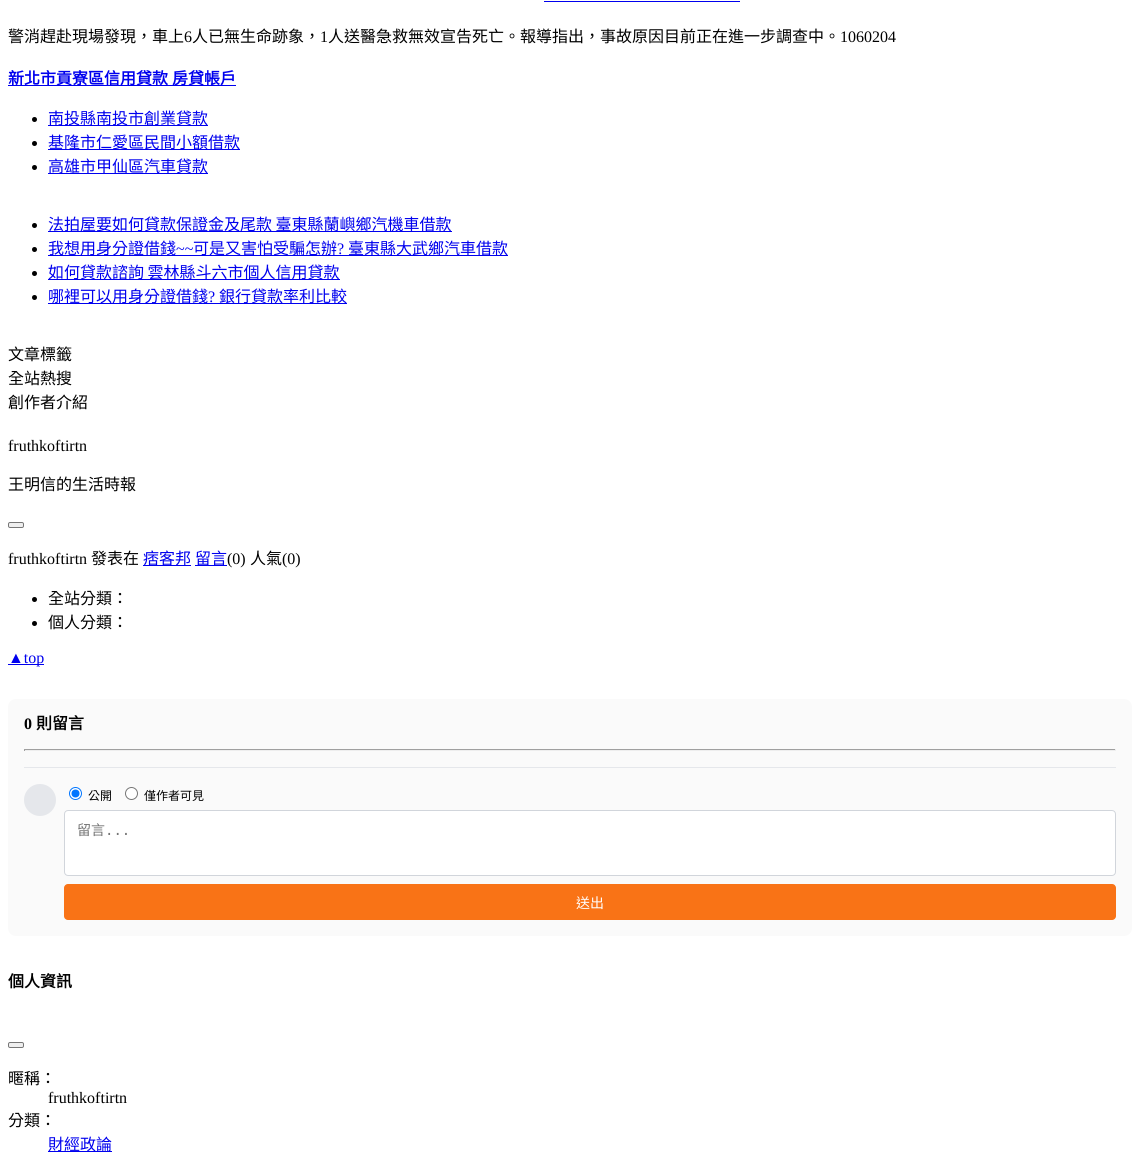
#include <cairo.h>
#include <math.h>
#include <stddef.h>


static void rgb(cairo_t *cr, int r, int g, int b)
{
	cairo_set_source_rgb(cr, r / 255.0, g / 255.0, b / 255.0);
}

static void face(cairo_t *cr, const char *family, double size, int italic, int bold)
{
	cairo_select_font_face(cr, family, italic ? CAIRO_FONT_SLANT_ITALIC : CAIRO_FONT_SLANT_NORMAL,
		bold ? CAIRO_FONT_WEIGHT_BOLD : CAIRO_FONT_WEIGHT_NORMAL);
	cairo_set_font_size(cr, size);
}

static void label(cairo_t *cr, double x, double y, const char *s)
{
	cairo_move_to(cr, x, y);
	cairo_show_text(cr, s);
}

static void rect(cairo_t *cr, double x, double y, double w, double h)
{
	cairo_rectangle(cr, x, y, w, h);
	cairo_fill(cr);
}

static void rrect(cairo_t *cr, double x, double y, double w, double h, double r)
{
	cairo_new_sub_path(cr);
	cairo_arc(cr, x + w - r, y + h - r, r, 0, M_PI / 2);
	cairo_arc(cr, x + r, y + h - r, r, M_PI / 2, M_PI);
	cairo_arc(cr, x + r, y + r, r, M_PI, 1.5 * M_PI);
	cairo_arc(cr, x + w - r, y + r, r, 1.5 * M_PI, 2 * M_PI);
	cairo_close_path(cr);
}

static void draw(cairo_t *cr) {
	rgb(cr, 255, 255, 255);
	cairo_paint(cr);
	rgb(cr, 0, 0, 238);
	rect(cr, 544, 1, 196, 1);
	face(cr, "Noto Sans CJK TC", 16, 0, 0);
	rgb(cr, 0, 0, 0);
	label(cr, 8, 42, "警消趕赴現場發現，車上");
	face(cr, "Liberation Serif", 16, 0, 0);
	label(cr, 184, 42, "6");
	face(cr, "Noto Sans CJK TC", 16, 0, 0);
	label(cr, 192, 42, "人已無生命跡象，");
	face(cr, "Liberation Serif", 16, 0, 0);
	label(cr, 320, 42, "1");
	face(cr, "Noto Sans CJK TC", 16, 0, 0);
	label(cr, 328, 42, "人送醫急救無效宣告死亡。報導指出，事故原因目前正在進一步調查中。");
	face(cr, "Liberation Serif", 16, 0, 0);
	label(cr, 840, 42, "1060204");
	rgb(cr, 0, 0, 238);
	rect(cr, 8, 85, 228, 1);
	face(cr, "Noto Sans CJK TC", 16, 0, 1);
	label(cr, 8, 84, "新北市貢寮區信用貸款");
	label(cr, 172, 84, "房貸帳戶");
	rgb(cr, 0, 0, 0);
	cairo_new_path(cr);
	cairo_arc(cr, 34.5, 119.5, 2.5, 0, 2 * M_PI);
	cairo_fill(cr);
	rgb(cr, 0, 0, 238);
	rect(cr, 48, 125, 160, 1);
	face(cr, "Noto Sans CJK TC", 16, 0, 0);
	label(cr, 48, 124, "南投縣南投市創業貸款");
	rgb(cr, 0, 0, 0);
	cairo_new_path(cr);
	cairo_arc(cr, 34.5, 143.5, 2.5, 0, 2 * M_PI);
	cairo_fill(cr);
	rgb(cr, 0, 0, 238);
	rect(cr, 48, 149, 192, 1);
	label(cr, 48, 148, "基隆市仁愛區民間小額借款");
	rgb(cr, 0, 0, 0);
	cairo_new_path(cr);
	cairo_arc(cr, 34.5, 167.5, 2.5, 0, 2 * M_PI);
	cairo_fill(cr);
	rgb(cr, 0, 0, 238);
	rect(cr, 48, 173, 160, 1);
	label(cr, 48, 172, "高雄市甲仙區汽車貸款");
	rgb(cr, 0, 0, 0);
	cairo_new_path(cr);
	cairo_arc(cr, 34.5, 225.5, 2.5, 0, 2 * M_PI);
	cairo_fill(cr);
	rgb(cr, 0, 0, 238);
	rect(cr, 48, 231, 404, 1);
	label(cr, 48, 230, "法拍屋要如何貸款保證金及尾款 臺東縣蘭嶼鄉汽機車借款");
	rgb(cr, 0, 0, 0);
	cairo_new_path(cr);
	cairo_arc(cr, 34.5, 249.5, 2.5, 0, 2 * M_PI);
	cairo_fill(cr);
	rgb(cr, 0, 0, 238);
	rect(cr, 48, 255, 460, 1);
	label(cr, 48, 254, "我想用身分證借錢");
	face(cr, "Liberation Serif", 16, 0, 0);
	label(cr, 176, 254, "~~");
	face(cr, "Noto Sans CJK TC", 16, 0, 0);
	label(cr, 193, 254, "可是又害怕受騙怎辦");
	face(cr, "Liberation Serif", 16, 0, 0);
	label(cr, 337, 254, "?");
	face(cr, "Noto Sans CJK TC", 16, 0, 0);
	label(cr, 348, 254, "臺東縣大武鄉汽車借款");
	rgb(cr, 0, 0, 0);
	cairo_new_path(cr);
	cairo_arc(cr, 34.5, 273.5, 2.5, 0, 2 * M_PI);
	cairo_fill(cr);
	rgb(cr, 0, 0, 238);
	rect(cr, 48, 279, 292, 1);
	label(cr, 48, 278, "如何貸款諮詢 雲林縣斗六市個人信用貸款");
	rgb(cr, 0, 0, 0);
	cairo_new_path(cr);
	cairo_arc(cr, 34.5, 297.5, 2.5, 0, 2 * M_PI);
	cairo_fill(cr);
	rgb(cr, 0, 0, 238);
	rect(cr, 48, 303, 299, 1);
	label(cr, 48, 302, "哪裡可以用身分證借錢");
	face(cr, "Liberation Serif", 16, 0, 0);
	label(cr, 208, 302, "?");
	face(cr, "Noto Sans CJK TC", 16, 0, 0);
	label(cr, 219, 302, "銀行貸款率利比較");
	rgb(cr, 0, 0, 0);
	label(cr, 8, 360, "文章標籤");
	label(cr, 8, 384, "全站熱搜");
	label(cr, 8, 408, "創作者介紹");
	face(cr, "Liberation Serif", 16, 0, 0);
	label(cr, 8, 451, "fruthkoftirtn");
	face(cr, "Noto Sans CJK TC", 16, 0, 0);
	label(cr, 8, 490, "王明信的生活時報");
	rgb(cr, 239, 239, 239);
	rrect(cr, 8.5, 522.5, 15, 5, 1.5);
	cairo_fill_preserve(cr);
	rgb(cr, 118, 118, 118);
	cairo_set_line_width(cr, 1);
	cairo_stroke(cr);
	face(cr, "Liberation Serif", 16, 0, 0);
	rgb(cr, 0, 0, 0);
	label(cr, 8, 564, "fruthkoftirtn");
	face(cr, "Noto Sans CJK TC", 16, 0, 0);
	label(cr, 91, 564, "發表在");
	rgb(cr, 0, 0, 238);
	rect(cr, 143, 565, 48, 1);
	label(cr, 143, 564, "痞客邦");
	rect(cr, 195, 565, 32, 1);
	label(cr, 195, 564, "留言");
	face(cr, "Liberation Serif", 16, 0, 0);
	rgb(cr, 0, 0, 0);
	label(cr, 227, 564, "(0)");
	face(cr, "Noto Sans CJK TC", 16, 0, 0);
	label(cr, 250, 564, "人氣");
	face(cr, "Liberation Serif", 16, 0, 0);
	label(cr, 282, 564, "(0)");
	cairo_new_path(cr);
	cairo_arc(cr, 34.5, 599.5, 2.5, 0, 2 * M_PI);
	cairo_fill(cr);
	face(cr, "Noto Sans CJK TC", 16, 0, 0);
	label(cr, 48, 604, "全站分類：");
	cairo_new_path(cr);
	cairo_arc(cr, 34.5, 623.5, 2.5, 0, 2 * M_PI);
	cairo_fill(cr);
	label(cr, 48, 628, "個人分類：");
	rgb(cr, 0, 0, 238);
	rect(cr, 8, 664, 36, 1);
	face(cr, "Liberation Serif", 16, 0, 0);
	label(cr, 8, 663, "▲top");
	rgb(cr, 250, 250, 250);
	rrect(cr, 8, 699, 1124, 237, 8);
	cairo_fill(cr);
	face(cr, "Liberation Serif", 16, 0, 1);
	rgb(cr, 0, 0, 0);
	label(cr, 24, 729, "0");
	face(cr, "Noto Sans CJK TC", 16, 0, 1);
	label(cr, 36, 729, "則留言");
	rgb(cr, 159, 159, 159);
	rect(cr, 24, 749, 1092, 1);
	rgb(cr, 238, 238, 238);
	rect(cr, 1115, 749, 1, 2);
	rect(cr, 24, 750, 1092, 1);
	rgb(cr, 159, 159, 159);
	rect(cr, 24, 749, 1, 2);
	rgb(cr, 229, 231, 235);
	rect(cr, 24, 767, 1092, 1);
	cairo_new_path(cr);
	cairo_arc(cr, 40, 800, 16, 0, 2 * M_PI);
	cairo_fill(cr);
	rgb(cr, 255, 255, 255);
	cairo_arc(cr, 75.5, 793.5, 6, 0, 2 * M_PI);
	cairo_fill_preserve(cr);
	rgb(cr, 0, 117, 255);
	cairo_stroke(cr);
	cairo_arc(cr, 75.5, 793.5, 4, 0, 2 * M_PI);
	cairo_fill(cr);
	face(cr, "Noto Sans CJK TC", 12, 0, 0);
	rgb(cr, 0, 0, 0);
	label(cr, 88, 800, "公開");
	rgb(cr, 255, 255, 255);
	cairo_new_path(cr);
	cairo_arc(cr, 131.5, 793.5, 6, 0, 2 * M_PI);
	cairo_fill_preserve(cr);
	rgb(cr, 118, 118, 118);
	cairo_stroke(cr);
	rgb(cr, 0, 0, 0);
	label(cr, 144, 800, "僅作者可見");
	rgb(cr, 255, 255, 255);
	rrect(cr, 64.5, 810.5, 1051, 65, 3.5);
	cairo_fill_preserve(cr);
	rgb(cr, 209, 213, 219);
	cairo_stroke(cr);
	face(cr, "Noto Sans CJK TC", 14, 0, 0);
	rgb(cr, 117, 117, 117);
	label(cr, 77, 835, "留言");
	face(cr, "DejaVu Sans Mono", 14, 0, 0);
	label(cr, 105, 835, "...");
	rgb(cr, 249, 115, 22);
	rrect(cr, 64, 884, 1052, 36, 4);
	cairo_fill(cr);
	face(cr, "Noto Sans CJK TC", 14, 0, 0);
	rgb(cr, 255, 255, 255);
	label(cr, 576, 908, "送出");
	face(cr, "Noto Sans CJK TC", 16, 0, 1);
	rgb(cr, 0, 0, 0);
	label(cr, 8, 987, "個人資訊");
	rgb(cr, 239, 239, 239);
	rrect(cr, 8.5, 1042.5, 15, 5, 1.5);
	cairo_fill_preserve(cr);
	rgb(cr, 118, 118, 118);
	cairo_stroke(cr);
	face(cr, "Noto Sans CJK TC", 16, 0, 0);
	rgb(cr, 0, 0, 0);
	label(cr, 8, 1084, "暱稱：");
	face(cr, "Liberation Serif", 16, 0, 0);
	label(cr, 48, 1103, "fruthkoftirtn");
	face(cr, "Noto Sans CJK TC", 16, 0, 0);
	label(cr, 8, 1126, "分類：");
	rgb(cr, 0, 0, 238);
	rect(cr, 48, 1151, 64, 1);
	label(cr, 48, 1150, "財經政論");
}

int main(void) {
	cairo_surface_t *surface = cairo_image_surface_create(CAIRO_FORMAT_RGB24, 1140, 1153);
	cairo_t *cr = cairo_create(surface);
	cairo_font_options_t *options = cairo_font_options_create();
	cairo_font_options_set_hint_metrics(options, CAIRO_HINT_METRICS_OFF);
	cairo_font_options_set_hint_style(options, CAIRO_HINT_STYLE_NONE);
	cairo_set_font_options(cr, options);
	cairo_set_miter_limit(cr, 4);
	draw(cr);
	cairo_surface_write_to_png(surface, "render.png");
	cairo_font_options_destroy(options);
	cairo_destroy(cr);
	cairo_surface_destroy(surface);
	return 0;
}
